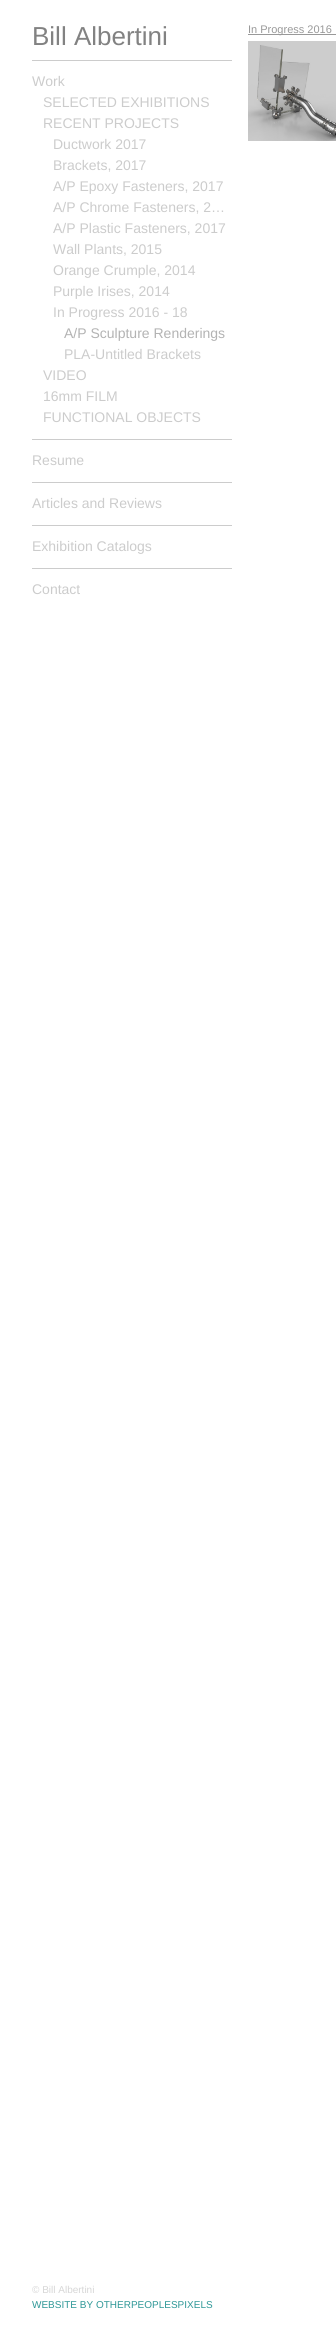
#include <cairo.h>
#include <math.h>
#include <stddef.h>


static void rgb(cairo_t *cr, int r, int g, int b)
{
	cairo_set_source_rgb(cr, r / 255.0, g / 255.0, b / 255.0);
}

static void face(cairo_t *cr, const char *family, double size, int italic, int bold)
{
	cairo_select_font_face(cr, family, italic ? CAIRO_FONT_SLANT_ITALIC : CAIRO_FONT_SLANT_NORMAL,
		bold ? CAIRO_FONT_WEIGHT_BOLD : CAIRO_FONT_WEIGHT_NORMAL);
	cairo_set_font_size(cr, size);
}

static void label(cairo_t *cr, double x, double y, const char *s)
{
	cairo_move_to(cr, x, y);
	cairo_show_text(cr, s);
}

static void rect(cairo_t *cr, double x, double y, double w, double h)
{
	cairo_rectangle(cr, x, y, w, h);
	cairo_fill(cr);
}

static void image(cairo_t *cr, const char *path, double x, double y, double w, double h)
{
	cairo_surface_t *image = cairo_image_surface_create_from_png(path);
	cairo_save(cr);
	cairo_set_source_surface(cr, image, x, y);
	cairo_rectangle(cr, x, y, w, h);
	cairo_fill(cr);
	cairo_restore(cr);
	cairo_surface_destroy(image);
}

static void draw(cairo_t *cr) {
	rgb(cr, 255, 255, 255);
	cairo_paint(cr);
	face(cr, "Liberation Sans", 26, 0, 0);
	rgb(cr, 130, 130, 130);
	label(cr, 32, 45, "Bill Albertini");
	rgb(cr, 204, 204, 204);
	rect(cr, 32, 60, 200, 1);
	face(cr, "Liberation Sans", 14, 0, 0);
	label(cr, 32, 86, "Work");
	label(cr, 43, 107, "SELECTED EXHIBITIONS");
	label(cr, 43, 128, "RECENT PROJECTS");
	label(cr, 53, 149, "Ductwork 2017");
	label(cr, 53, 170, "Brackets, 2017");
	label(cr, 53, 191, "A/P Epoxy Fasteners, 2017");
	label(cr, 53, 212, "A/P Chrome Fasteners, 2…");
	label(cr, 53, 233, "A/P Plastic Fasteners, 2017");
	label(cr, 53, 254, "Wall Plants, 2015");
	label(cr, 53, 275, "Orange Crumple, 2014");
	label(cr, 53, 296, "Purple Irises, 2014");
	label(cr, 53, 317, "In Progress 2016 - 18");
	rgb(cr, 179, 179, 179);
	label(cr, 64, 338, "A/P Sculpture Renderings");
	rgb(cr, 204, 204, 204);
	label(cr, 64, 359, "PLA-Untitled Brackets");
	label(cr, 43, 380, "VIDEO");
	label(cr, 43, 401, "16mm FILM");
	label(cr, 43, 422, "FUNCTIONAL OBJECTS");
	rect(cr, 32, 439, 200, 1);
	label(cr, 32, 465, "Resume");
	rect(cr, 32, 482, 200, 1);
	label(cr, 32, 508, "Articles and Reviews");
	rect(cr, 32, 525, 200, 1);
	label(cr, 32, 551, "Exhibition Catalogs");
	rect(cr, 32, 568, 200, 1);
	label(cr, 32, 594, "Contact");
	face(cr, "Liberation Sans", 10, 0, 0);
	rgb(cr, 214, 214, 214);
	label(cr, 32, 2293, "© Bill Albertini");
	rgb(cr, 47, 152, 151);
	label(cr, 32, 2308, "WEBSITE BY OTHERPEOPLESPIXELS");
	rgb(cr, 153, 153, 153);
	rect(cr, 248, 34, 88, 1);
	face(cr, "Liberation Sans", 11, 0, 0);
	label(cr, 248, 33, "In Progress 2016");
	image(cr, "image0.png", 248, 41, 88, 100);
}

int main(void) {
	cairo_surface_t *surface = cairo_image_surface_create(CAIRO_FORMAT_RGB24, 336, 2335);
	cairo_t *cr = cairo_create(surface);
	cairo_font_options_t *options = cairo_font_options_create();
	cairo_font_options_set_hint_metrics(options, CAIRO_HINT_METRICS_OFF);
	cairo_font_options_set_hint_style(options, CAIRO_HINT_STYLE_NONE);
	cairo_set_font_options(cr, options);
	cairo_set_miter_limit(cr, 4);
	draw(cr);
	cairo_surface_write_to_png(surface, "render.png");
	cairo_font_options_destroy(options);
	cairo_destroy(cr);
	cairo_surface_destroy(surface);
	return 0;
}
